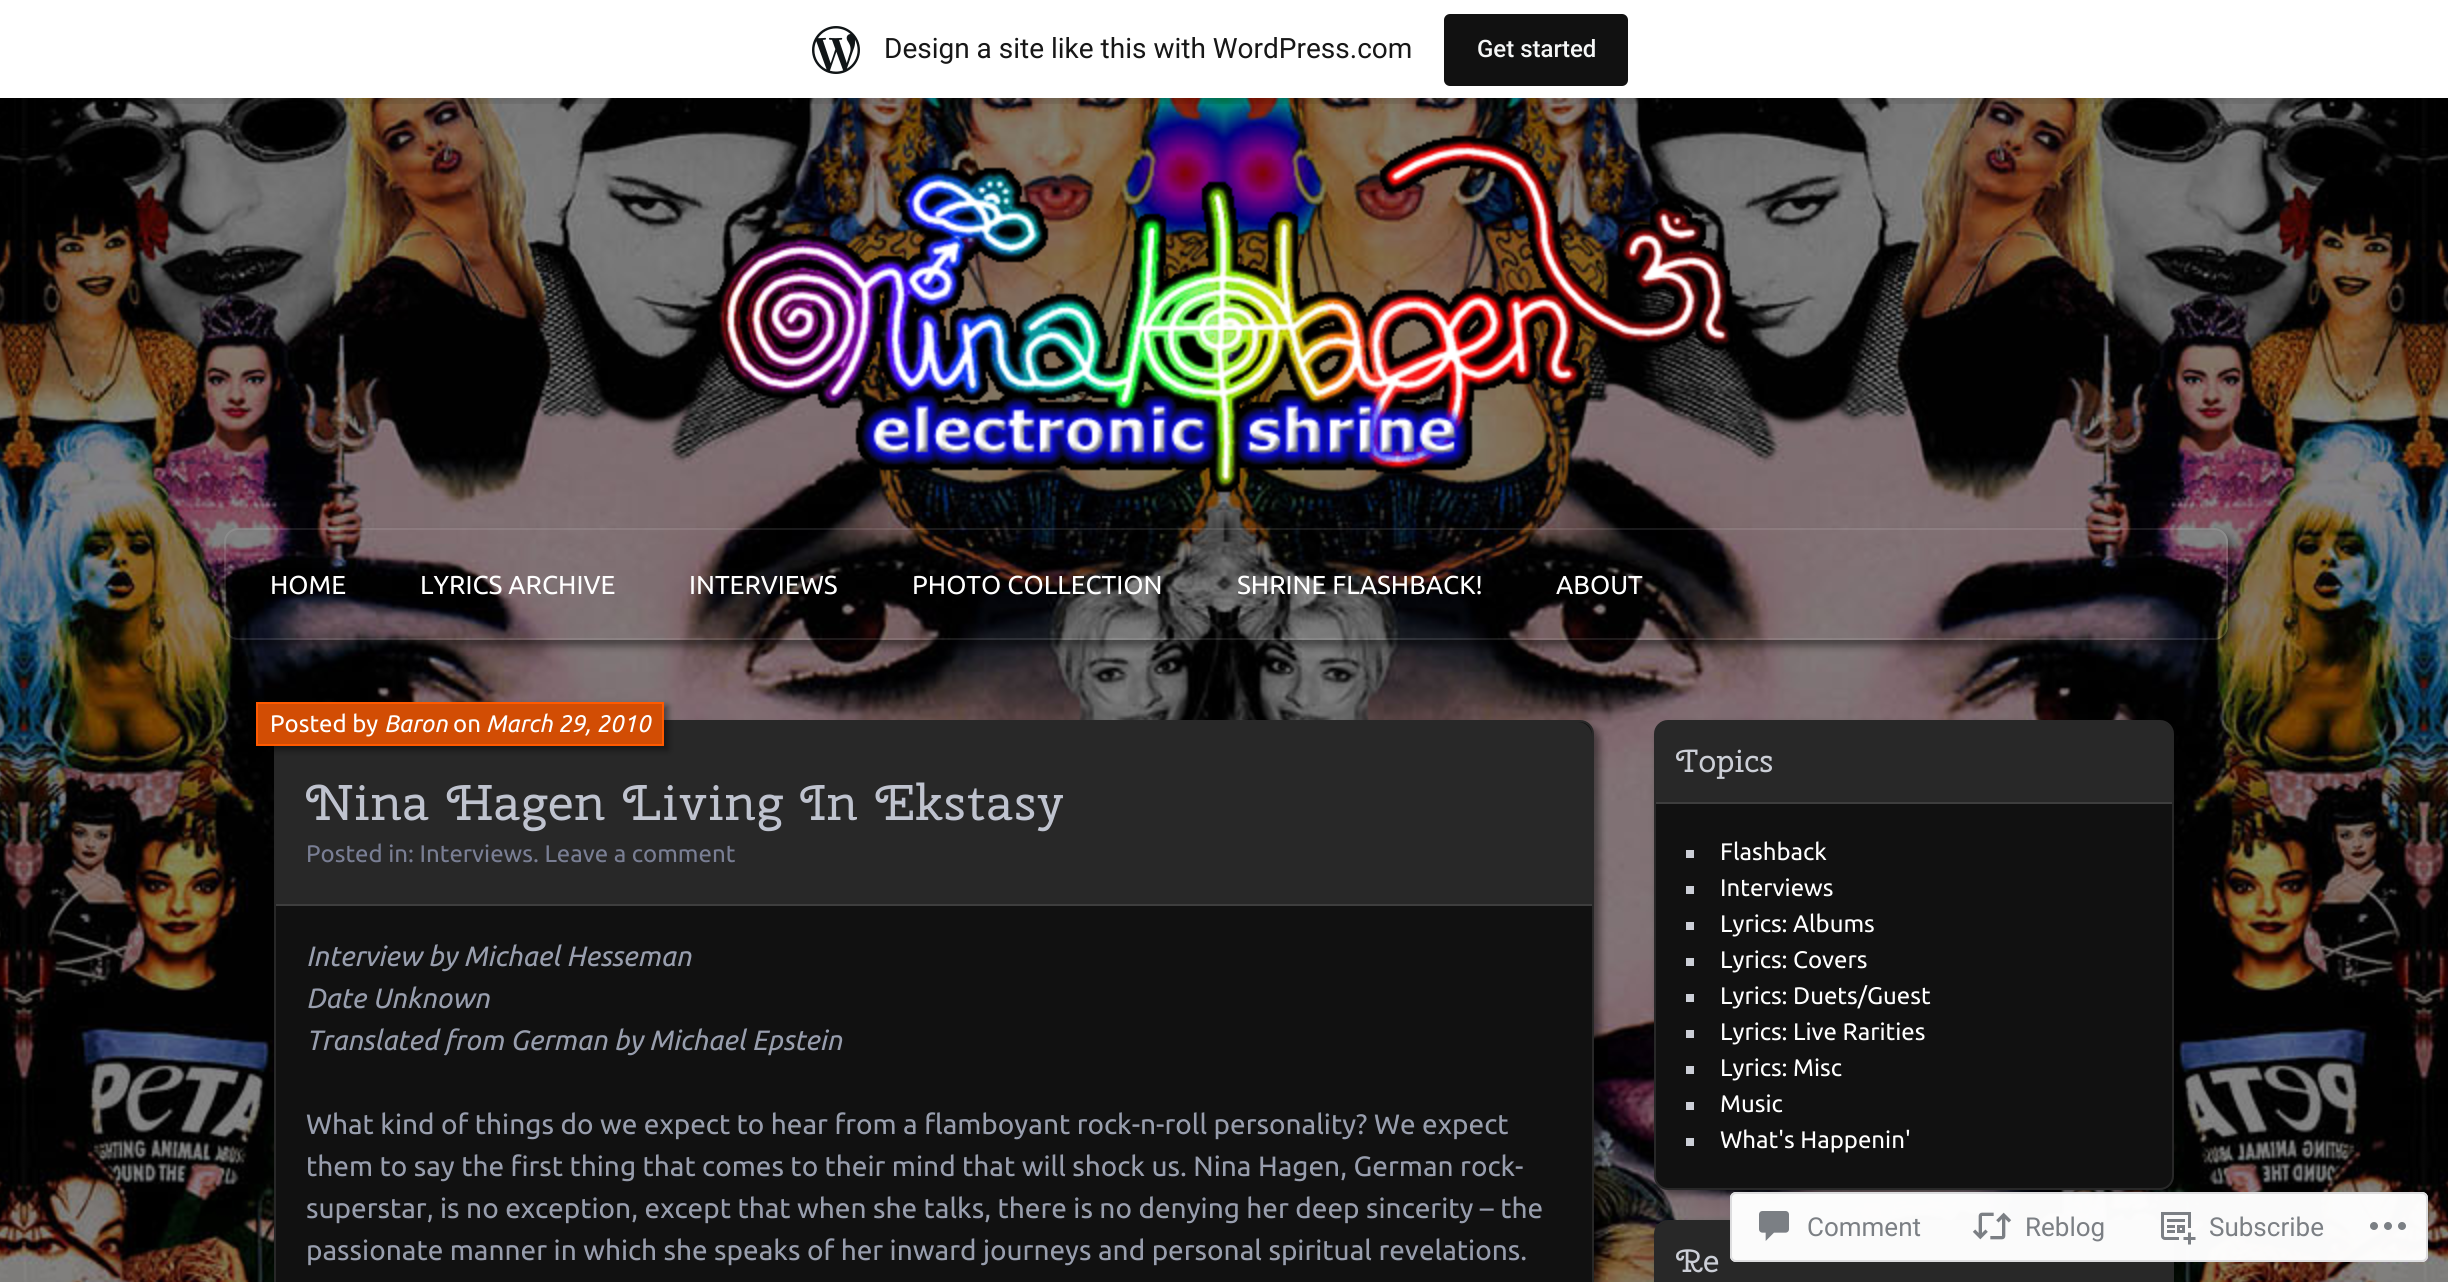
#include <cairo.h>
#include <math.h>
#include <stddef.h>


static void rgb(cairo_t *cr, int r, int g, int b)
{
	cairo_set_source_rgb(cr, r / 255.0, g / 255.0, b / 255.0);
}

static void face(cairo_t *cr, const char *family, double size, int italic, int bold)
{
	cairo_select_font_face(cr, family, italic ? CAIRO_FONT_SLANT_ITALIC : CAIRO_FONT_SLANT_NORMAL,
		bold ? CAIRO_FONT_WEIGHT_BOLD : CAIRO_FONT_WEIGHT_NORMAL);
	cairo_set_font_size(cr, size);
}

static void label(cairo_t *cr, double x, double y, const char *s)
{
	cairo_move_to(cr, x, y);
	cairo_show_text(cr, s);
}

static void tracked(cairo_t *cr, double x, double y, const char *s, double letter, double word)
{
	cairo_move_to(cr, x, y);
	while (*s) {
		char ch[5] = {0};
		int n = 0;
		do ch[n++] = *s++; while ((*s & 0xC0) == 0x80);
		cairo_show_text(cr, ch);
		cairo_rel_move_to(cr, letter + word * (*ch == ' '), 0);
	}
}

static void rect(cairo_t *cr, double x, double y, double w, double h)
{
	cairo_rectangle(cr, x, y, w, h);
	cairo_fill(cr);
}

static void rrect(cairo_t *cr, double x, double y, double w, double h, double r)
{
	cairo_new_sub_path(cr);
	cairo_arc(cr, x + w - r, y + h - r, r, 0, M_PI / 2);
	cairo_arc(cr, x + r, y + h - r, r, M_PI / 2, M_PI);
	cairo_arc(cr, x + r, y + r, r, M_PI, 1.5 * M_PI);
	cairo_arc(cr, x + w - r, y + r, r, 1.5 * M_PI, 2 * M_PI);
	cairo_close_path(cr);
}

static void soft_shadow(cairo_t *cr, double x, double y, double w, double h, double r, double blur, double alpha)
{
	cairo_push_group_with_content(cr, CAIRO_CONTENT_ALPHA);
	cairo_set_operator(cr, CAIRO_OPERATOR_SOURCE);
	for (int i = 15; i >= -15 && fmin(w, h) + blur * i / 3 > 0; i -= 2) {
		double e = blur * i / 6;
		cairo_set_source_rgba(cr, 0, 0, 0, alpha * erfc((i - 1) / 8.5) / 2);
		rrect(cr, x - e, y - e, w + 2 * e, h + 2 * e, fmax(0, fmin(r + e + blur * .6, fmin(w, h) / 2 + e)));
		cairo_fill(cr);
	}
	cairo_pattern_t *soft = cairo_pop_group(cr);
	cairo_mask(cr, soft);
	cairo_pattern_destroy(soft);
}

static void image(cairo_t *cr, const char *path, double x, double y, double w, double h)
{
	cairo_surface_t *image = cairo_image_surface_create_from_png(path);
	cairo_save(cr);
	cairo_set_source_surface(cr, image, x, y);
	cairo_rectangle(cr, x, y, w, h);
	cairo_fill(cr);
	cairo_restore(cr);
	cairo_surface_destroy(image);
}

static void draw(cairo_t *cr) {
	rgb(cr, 255, 255, 255);
	cairo_paint(cr);
	image(cr, "image0.png", 0, 98, 2448, 1184);
	rgb(cr, 0, 0, 0);
	soft_shadow(cr, 0, 2, 2448, 98, 0, 2, 0.05);
	cairo_set_source_rgba(cr, 0, 0, 0, 0.08);
	cairo_new_path(cr);
	cairo_move_to(cr, 2, 98);
	cairo_line_to(cr, 2, 104);
	cairo_line_to(cr, 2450, 104);
	cairo_line_to(cr, 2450, 6);
	cairo_line_to(cr, 2448, 6);
	cairo_line_to(cr, 2448, 98);
	cairo_close_path(cr);
	cairo_fill(cr);
	rgb(cr, 255, 255, 255);
	rect(cr, 0, 0, 2448, 98);
	image(cr, "image1.png", 812, 26, 48, 48);
	face(cr, "Roboto", 28, 0, 0);
	rgb(cr, 23, 23, 23);
	label(cr, 884, 58, "Design a site like this with WordPress.com");
	rgb(cr, 17, 17, 17);
	rrect(cr, 1444, 14, 184, 72, 6);
	cairo_fill(cr);
	face(cr, "Roboto Medium", 24, 0, 0);
	rgb(cr, 246, 247, 247);
	label(cr, 1477, 57, "Get started");
	image(cr, "image2.png", 717, 135, 1016, 358);
	cairo_save(cr);
	cairo_set_fill_rule(cr, CAIRO_FILL_RULE_EVEN_ODD);
	cairo_new_path(cr);
	cairo_move_to(cr, 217, 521);
	cairo_line_to(cr, 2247, 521);
	cairo_line_to(cr, 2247, 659);
	cairo_line_to(cr, 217, 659);
	cairo_close_path(cr);
	cairo_move_to(cr, 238, 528);
	cairo_line_to(cr, 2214, 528);
	cairo_curve_to(cr, 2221.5, 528, 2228, 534.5, 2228, 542);
	cairo_line_to(cr, 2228, 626);
	cairo_curve_to(cr, 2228, 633.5, 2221.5, 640, 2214, 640);
	cairo_line_to(cr, 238, 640);
	cairo_curve_to(cr, 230.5, 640, 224, 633.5, 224, 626);
	cairo_line_to(cr, 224, 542);
	cairo_curve_to(cr, 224, 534.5, 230.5, 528, 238, 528);
	cairo_close_path(cr);
	cairo_clip(cr);
	rgb(cr, 0, 0, 0);
	soft_shadow(cr, 230, 534, 2004, 112, 14, 4, 0.45);
	cairo_restore(cr);
	rrect(cr, 225, 529, 2002, 110, 13);
	cairo_set_source_rgba(cr, 1, 1, 1, 0.1);
	cairo_stroke(cr);
	face(cr, "Ubuntu", 26, 0, 0);
	rgb(cr, 255, 255, 255);
	label(cr, 270, 594, "HOME");
	label(cr, 420, 594, "LYRICS ARCHIVE");
	label(cr, 689, 594, "INTERVIEWS");
	label(cr, 912, 594, "PHOTO COLLECTION");
	label(cr, 1237, 594, "SHRINE FLASHBACK!");
	label(cr, 1556, 594, "ABOUT");
	rgb(cr, 0, 0, 0);
	soft_shadow(cr, 280, 726, 1320, 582, 14, 4, 0.45);
	rgb(cr, 17, 17, 17);
	rrect(cr, 274, 720, 1320, 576, 14);
	cairo_fill(cr);
	rrect(cr, 275, 721, 1318, 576, 13);
	cairo_set_source_rgba(cr, 1, 1, 1, 0.1);
	cairo_stroke(cr);
	cairo_new_path(cr);
	cairo_move_to(cr, 290, 722);
	cairo_line_to(cr, 1578, 722);
	cairo_curve_to(cr, 1585.5, 722, 1592, 728.5, 1592, 736);
	cairo_line_to(cr, 1592, 906);
	cairo_line_to(cr, 276, 906);
	cairo_line_to(cr, 276, 736);
	cairo_curve_to(cr, 276, 728.5, 282.5, 722, 290, 722);
	cairo_close_path(cr);
	cairo_fill(cr);
	rgb(cr, 62, 62, 62);
	rect(cr, 276, 904, 1316, 2);
	rgb(cr, 0, 0, 0);
	soft_shadow(cr, 260, 706, 408, 44, 0, 3.5, 0.45);
	rgb(cr, 210, 77, 4);
	cairo_rectangle(cr, 257, 703, 406, 42);
	cairo_fill_preserve(cr);
	rgb(cr, 255, 90, 0);
	cairo_stroke(cr);
	face(cr, "Ubuntu", 24, 0, 0);
	rgb(cr, 255, 255, 255);
	label(cr, 270, 732, "Posted by");
	face(cr, "Ubuntu", 24, 1, 0);
	label(cr, 384, 732, "Baron");
	face(cr, "Ubuntu", 24, 0, 0);
	label(cr, 453, 732, "on");
	face(cr, "Ubuntu", 24, 1, 0);
	label(cr, 486, 732, "March 29, 2010");
	face(cr, "Cherry Swash", 50, 0, 0);
	rgb(cr, 191, 195, 207);
	tracked(cr, 306, 820, "Nina Hagen Living In Ekstasy", 1.25, 0);
	face(cr, "Ubuntu", 24, 0, 0);
	rgb(cr, 121, 126, 148);
	label(cr, 306, 862, "Posted in: Interviews. Leave a comment");
	face(cr, "Ubuntu", 28, 1, 0);
	rgb(cr, 152, 158, 174);
	label(cr, 306, 966, "Interview by Michael Hesseman");
	label(cr, 306, 1008, "Date Unknown");
	label(cr, 306, 1050, "Translated from German by Michael Epstein");
	face(cr, "Ubuntu", 28, 0, 0);
	label(cr, 306, 1134, "What kind of things do we expect to hear from a flamboyant rock-n-roll personality? We expect");
	label(cr, 306, 1176, "them to say the first thing that comes to their mind that will shock us. Nina Hagen, German rock-");
	label(cr, 306, 1218, "superstar, is no exception, except that when she talks, there is no denying her deep sincerity – the");
	label(cr, 306, 1260, "passionate manner in which she speaks of her inward journeys and personal spiritual revelations.");
	rgb(cr, 0, 0, 0);
	soft_shadow(cr, 1658, 724, 520, 470, 14, 3.5, 0.45);
	rgb(cr, 17, 17, 17);
	rrect(cr, 1654, 720, 520, 470, 14);
	cairo_fill(cr);
	rrect(cr, 1655, 721, 518, 468, 13);
	cairo_set_source_rgba(cr, 1, 1, 1, 0.1);
	cairo_stroke(cr);
	cairo_new_path(cr);
	cairo_move_to(cr, 1668, 722);
	cairo_line_to(cr, 2160, 722);
	cairo_curve_to(cr, 2166.5, 722, 2172, 727.5, 2172, 734);
	cairo_line_to(cr, 2172, 804);
	cairo_line_to(cr, 1656, 804);
	cairo_line_to(cr, 1656, 734);
	cairo_curve_to(cr, 1656, 727.5, 1661.5, 722, 1668, 722);
	cairo_close_path(cr);
	cairo_fill(cr);
	rgb(cr, 62, 62, 62);
	rect(cr, 1656, 802, 516, 2);
	face(cr, "Cherry Swash", 32, 0, 0);
	rgb(cr, 204, 207, 215);
	label(cr, 1676, 772, "Topics");
	rect(cr, 1686, 850, 8, 8);
	face(cr, "Ubuntu", 24, 0, 0);
	rgb(cr, 255, 255, 255);
	label(cr, 1720, 860, "Flashback");
	rgb(cr, 204, 207, 215);
	rect(cr, 1686, 886, 8, 8);
	rgb(cr, 255, 255, 255);
	label(cr, 1720, 896, "Interviews");
	rgb(cr, 204, 207, 215);
	rect(cr, 1686, 922, 8, 8);
	rgb(cr, 255, 255, 255);
	label(cr, 1720, 932, "Lyrics: Albums");
	rgb(cr, 204, 207, 215);
	rect(cr, 1686, 958, 8, 8);
	rgb(cr, 255, 255, 255);
	label(cr, 1720, 968, "Lyrics: Covers");
	rgb(cr, 204, 207, 215);
	rect(cr, 1686, 994, 8, 8);
	rgb(cr, 255, 255, 255);
	label(cr, 1720, 1004, "Lyrics: Duets/Guest");
	rgb(cr, 204, 207, 215);
	rect(cr, 1686, 1030, 8, 8);
	rgb(cr, 255, 255, 255);
	label(cr, 1720, 1040, "Lyrics: Live Rarities");
	rgb(cr, 204, 207, 215);
	rect(cr, 1686, 1066, 8, 8);
	rgb(cr, 255, 255, 255);
	label(cr, 1720, 1076, "Lyrics: Misc");
	rgb(cr, 204, 207, 215);
	rect(cr, 1686, 1102, 8, 8);
	rgb(cr, 255, 255, 255);
	label(cr, 1720, 1112, "Music");
	rgb(cr, 204, 207, 215);
	rect(cr, 1686, 1138, 8, 8);
	rgb(cr, 255, 255, 255);
	label(cr, 1720, 1148, "What's Happenin'");
	rgb(cr, 0, 0, 0);
	soft_shadow(cr, 1658, 1224, 520, 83, 14, 3.5, 0.45);
	rgb(cr, 17, 17, 17);
	rrect(cr, 1654, 1220, 520, 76, 14);
	cairo_fill(cr);
	rrect(cr, 1655, 1221, 518, 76, 13);
	cairo_set_source_rgba(cr, 1, 1, 1, 0.1);
	cairo_stroke(cr);
	cairo_new_path(cr);
	cairo_move_to(cr, 1668, 1222);
	cairo_line_to(cr, 2160, 1222);
	cairo_curve_to(cr, 2166.5, 1222, 2172, 1227.5, 2172, 1234);
	cairo_line_to(cr, 2172, 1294);
	cairo_line_to(cr, 1656, 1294);
	cairo_line_to(cr, 1656, 1234);
	cairo_curve_to(cr, 1656, 1227.5, 1661.5, 1222, 1668, 1222);
	cairo_close_path(cr);
	cairo_fill(cr);
	face(cr, "Cherry Swash", 32, 0, 0);
	rgb(cr, 204, 207, 215);
	label(cr, 1676, 1272, "Re");
	cairo_set_source_rgba(cr, 1, 1, 1, 0.98);
	rrect(cr, 1730, 1192, 698, 70, 6);
	cairo_fill(cr);
	rrect(cr, 1731, 1193, 696, 68, 5);
	cairo_set_source_rgba(cr, 0.863, 0.863, 0.871, 0.98);
	cairo_stroke(cr);
	image(cr, "image3.png", 1759, 1211, 30, 30);
	face(cr, "Roboto", 26, 0, 0);
	rgb(cr, 123, 127, 132);
	label(cr, 1807, 1236, "Comment");
	image(cr, "image4.png", 1972, 1212, 40, 28);
	label(cr, 2025, 1236, "Reblog");
	image(cr, "image5.png", 2161, 1212, 35, 33);
	label(cr, 2209, 1236, "Subscribe");
	image(cr, "image6.png", 2370, 1222, 36, 8);
}

int main(void) {
	cairo_surface_t *surface = cairo_image_surface_create(CAIRO_FORMAT_RGB24, 2448, 1282);
	cairo_t *cr = cairo_create(surface);
	cairo_font_options_t *options = cairo_font_options_create();
	cairo_font_options_set_hint_metrics(options, CAIRO_HINT_METRICS_OFF);
	cairo_font_options_set_hint_style(options, CAIRO_HINT_STYLE_NONE);
	cairo_set_font_options(cr, options);
	cairo_set_miter_limit(cr, 4);
	draw(cr);
	cairo_surface_write_to_png(surface, "render.png");
	cairo_font_options_destroy(options);
	cairo_destroy(cr);
	cairo_surface_destroy(surface);
	return 0;
}
